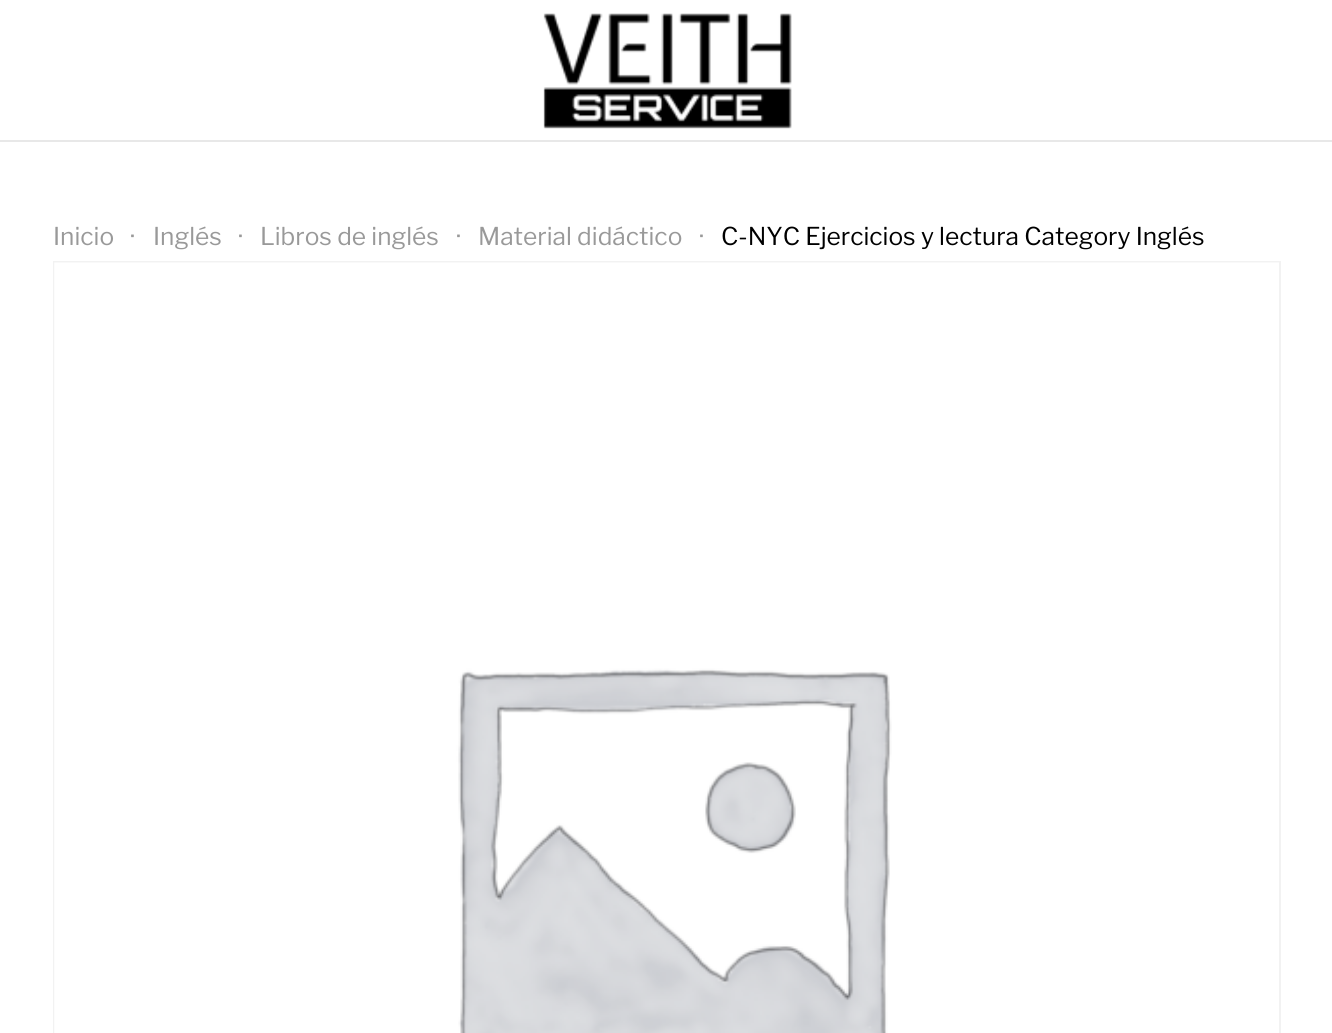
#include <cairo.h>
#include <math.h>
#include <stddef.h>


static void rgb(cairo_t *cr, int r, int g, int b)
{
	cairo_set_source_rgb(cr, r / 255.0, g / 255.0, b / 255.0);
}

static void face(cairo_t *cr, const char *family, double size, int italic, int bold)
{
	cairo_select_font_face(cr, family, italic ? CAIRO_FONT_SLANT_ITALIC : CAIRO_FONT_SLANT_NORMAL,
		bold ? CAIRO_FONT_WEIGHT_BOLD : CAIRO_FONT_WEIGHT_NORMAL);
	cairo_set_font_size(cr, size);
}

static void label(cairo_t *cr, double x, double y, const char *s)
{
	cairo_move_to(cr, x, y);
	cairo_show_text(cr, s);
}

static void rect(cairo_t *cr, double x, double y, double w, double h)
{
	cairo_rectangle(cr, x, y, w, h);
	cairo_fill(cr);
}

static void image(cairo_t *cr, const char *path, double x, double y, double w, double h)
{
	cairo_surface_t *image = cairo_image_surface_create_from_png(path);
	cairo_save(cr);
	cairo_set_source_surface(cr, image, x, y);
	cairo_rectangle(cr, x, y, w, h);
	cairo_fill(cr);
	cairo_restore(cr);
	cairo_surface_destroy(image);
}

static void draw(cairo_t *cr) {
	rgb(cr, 255, 255, 255);
	cairo_paint(cr);
	rgb(cr, 232, 232, 232);
	rect(cr, 0, 140, 1332, 2);
	image(cr, "image0.png", 543, 13, 249, 116);
	face(cr, "Libre Franklin Thin", 24.5, 0, 0);
	rgb(cr, 153, 153, 153);
	label(cr, 53, 245, "Inicio");
	label(cr, 130, 245, "·");
	label(cr, 153, 245, "Inglés");
	label(cr, 238, 245, "·");
	label(cr, 260, 245, "Libros de inglés");
	label(cr, 456, 245, "·");
	label(cr, 478, 245, "Material didáctico");
	label(cr, 699, 245, "·");
	rgb(cr, 0, 0, 0);
	label(cr, 721, 245, "C-NYC Ejercicios y lectura Category Inglés");
	cairo_rectangle(cr, 54, 262, 1226, 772);
	rgb(cr, 242, 242, 242);
	cairo_stroke(cr);
	image(cr, "image1.png", 54, 262, 1225, 771);
}

int main(void) {
	cairo_surface_t *surface = cairo_image_surface_create(CAIRO_FORMAT_RGB24, 1332, 1033);
	cairo_t *cr = cairo_create(surface);
	cairo_font_options_t *options = cairo_font_options_create();
	cairo_font_options_set_hint_metrics(options, CAIRO_HINT_METRICS_OFF);
	cairo_font_options_set_hint_style(options, CAIRO_HINT_STYLE_NONE);
	cairo_set_font_options(cr, options);
	cairo_set_miter_limit(cr, 4);
	draw(cr);
	cairo_surface_write_to_png(surface, "render.png");
	cairo_font_options_destroy(options);
	cairo_destroy(cr);
	cairo_surface_destroy(surface);
	return 0;
}
